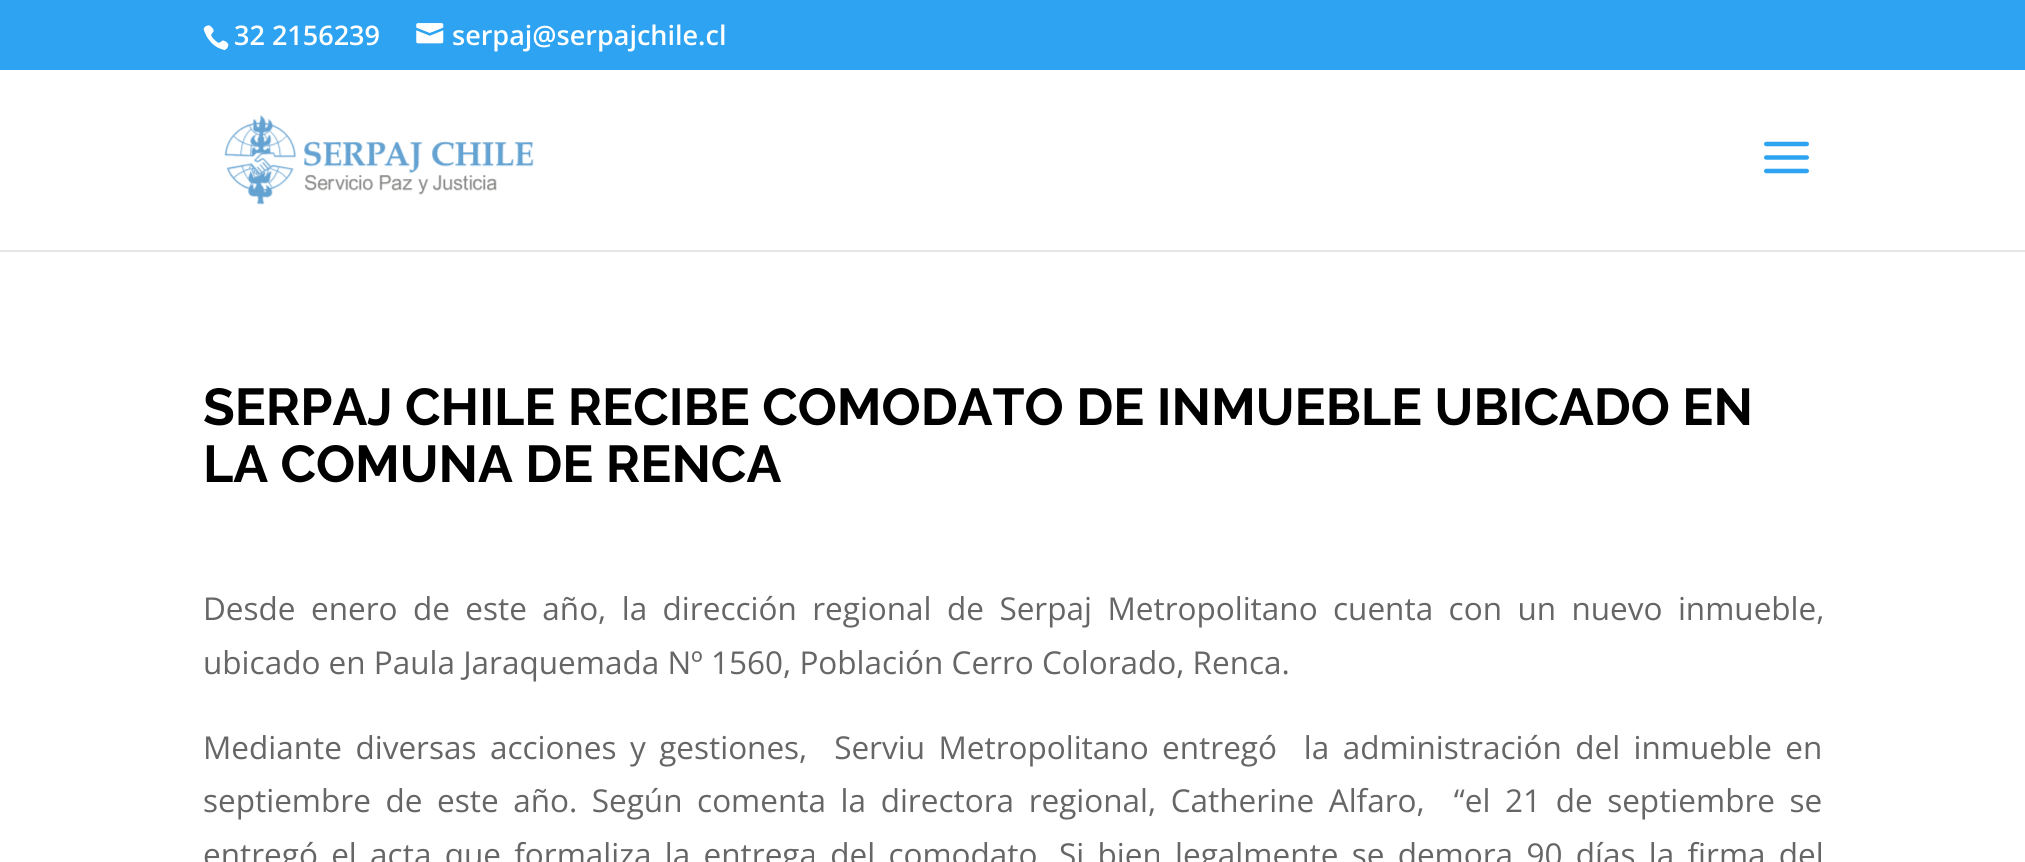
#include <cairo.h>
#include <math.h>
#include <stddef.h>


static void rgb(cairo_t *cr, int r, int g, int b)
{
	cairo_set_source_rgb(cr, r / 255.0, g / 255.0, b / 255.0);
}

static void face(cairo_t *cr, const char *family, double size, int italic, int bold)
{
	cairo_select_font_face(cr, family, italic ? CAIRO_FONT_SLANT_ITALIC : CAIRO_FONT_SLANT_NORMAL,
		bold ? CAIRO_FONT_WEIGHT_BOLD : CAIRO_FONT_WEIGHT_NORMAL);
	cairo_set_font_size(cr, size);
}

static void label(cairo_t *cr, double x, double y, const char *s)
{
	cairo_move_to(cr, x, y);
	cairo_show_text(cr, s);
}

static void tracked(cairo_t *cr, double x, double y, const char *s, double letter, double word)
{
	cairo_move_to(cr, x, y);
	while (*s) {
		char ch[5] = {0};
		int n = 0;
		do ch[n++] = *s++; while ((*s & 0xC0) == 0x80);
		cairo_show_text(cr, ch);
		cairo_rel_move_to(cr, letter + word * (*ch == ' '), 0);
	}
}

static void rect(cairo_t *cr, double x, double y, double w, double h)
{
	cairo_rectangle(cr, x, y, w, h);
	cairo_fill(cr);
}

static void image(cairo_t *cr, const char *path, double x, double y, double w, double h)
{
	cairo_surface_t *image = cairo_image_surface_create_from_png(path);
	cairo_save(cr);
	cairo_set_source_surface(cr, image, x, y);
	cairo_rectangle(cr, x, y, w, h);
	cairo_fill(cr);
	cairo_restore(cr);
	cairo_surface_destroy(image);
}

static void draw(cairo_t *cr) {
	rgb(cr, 255, 255, 255);
	cairo_paint(cr);
	rgb(cr, 46, 163, 242);
	rect(cr, 0, 0, 2025, 70);
	image(cr, "image0.png", 203, 25, 26, 26);
	face(cr, "Open Sans SemiBold", 27, 0, 0);
	rgb(cr, 255, 255, 255);
	label(cr, 234, 45, "32 2156239");
	image(cr, "image1.png", 416, 23, 28, 21);
	label(cr, 452, 45, "serpaj@serpajchile.cl");
	rgb(cr, 230, 230, 230);
	rect(cr, 0, 250, 2025, 2);
	image(cr, "image2.png", 224, 115, 310, 90);
	image(cr, "image3.png", 1764, 141, 45, 33);
	face(cr, "Raleway", 51.75, 0, 1);
	rgb(cr, 0, 0, 0);
	label(cr, 203, 425, "SERPAJ CHILE RECIBE COMODATO DE INMUEBLE UBICADO EN");
	label(cr, 203, 482, "LA COMUNA DE RENCA");
	face(cr, "Open Sans", 31.5, 0, 0);
	rgb(cr, 102, 102, 102);
	tracked(cr, 203, 620, "Desde enero de este año, la dirección regional de Serpaj Metropolitano cuenta con un nuevo inmueble,", 0, 7.25);
	label(cr, 203, 674, "ubicado en Paula Jaraquemada Nº 1560, Población Cerro Colorado, Renca.");
	tracked(cr, 203, 759, "Mediante diversas acciones y gestiones,  Serviu Metropolitano entregó  la administración del inmueble en", 0, 5.25);
	tracked(cr, 203, 812, "septiembre de este año. Según comenta la directora regional, Catherine Alfaro,  “el 21 de septiembre se", 0, 6.4);
	tracked(cr, 203, 866, "entregó el acta que formaliza la entrega del comodato. Si bien legalmente se demora 90 días la firma del", 0, 5.1);
}

int main(void) {
	cairo_surface_t *surface = cairo_image_surface_create(CAIRO_FORMAT_RGB24, 2025, 862);
	cairo_t *cr = cairo_create(surface);
	cairo_font_options_t *options = cairo_font_options_create();
	cairo_font_options_set_hint_metrics(options, CAIRO_HINT_METRICS_OFF);
	cairo_font_options_set_hint_style(options, CAIRO_HINT_STYLE_NONE);
	cairo_set_font_options(cr, options);
	cairo_set_miter_limit(cr, 4);
	draw(cr);
	cairo_surface_write_to_png(surface, "render.png");
	cairo_font_options_destroy(options);
	cairo_destroy(cr);
	cairo_surface_destroy(surface);
	return 0;
}
